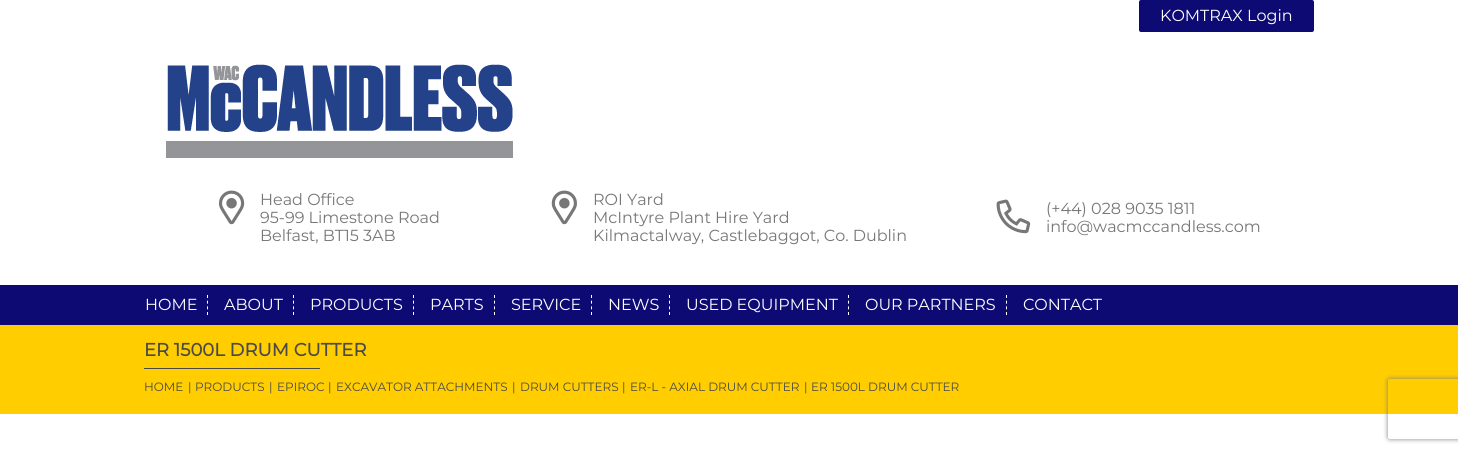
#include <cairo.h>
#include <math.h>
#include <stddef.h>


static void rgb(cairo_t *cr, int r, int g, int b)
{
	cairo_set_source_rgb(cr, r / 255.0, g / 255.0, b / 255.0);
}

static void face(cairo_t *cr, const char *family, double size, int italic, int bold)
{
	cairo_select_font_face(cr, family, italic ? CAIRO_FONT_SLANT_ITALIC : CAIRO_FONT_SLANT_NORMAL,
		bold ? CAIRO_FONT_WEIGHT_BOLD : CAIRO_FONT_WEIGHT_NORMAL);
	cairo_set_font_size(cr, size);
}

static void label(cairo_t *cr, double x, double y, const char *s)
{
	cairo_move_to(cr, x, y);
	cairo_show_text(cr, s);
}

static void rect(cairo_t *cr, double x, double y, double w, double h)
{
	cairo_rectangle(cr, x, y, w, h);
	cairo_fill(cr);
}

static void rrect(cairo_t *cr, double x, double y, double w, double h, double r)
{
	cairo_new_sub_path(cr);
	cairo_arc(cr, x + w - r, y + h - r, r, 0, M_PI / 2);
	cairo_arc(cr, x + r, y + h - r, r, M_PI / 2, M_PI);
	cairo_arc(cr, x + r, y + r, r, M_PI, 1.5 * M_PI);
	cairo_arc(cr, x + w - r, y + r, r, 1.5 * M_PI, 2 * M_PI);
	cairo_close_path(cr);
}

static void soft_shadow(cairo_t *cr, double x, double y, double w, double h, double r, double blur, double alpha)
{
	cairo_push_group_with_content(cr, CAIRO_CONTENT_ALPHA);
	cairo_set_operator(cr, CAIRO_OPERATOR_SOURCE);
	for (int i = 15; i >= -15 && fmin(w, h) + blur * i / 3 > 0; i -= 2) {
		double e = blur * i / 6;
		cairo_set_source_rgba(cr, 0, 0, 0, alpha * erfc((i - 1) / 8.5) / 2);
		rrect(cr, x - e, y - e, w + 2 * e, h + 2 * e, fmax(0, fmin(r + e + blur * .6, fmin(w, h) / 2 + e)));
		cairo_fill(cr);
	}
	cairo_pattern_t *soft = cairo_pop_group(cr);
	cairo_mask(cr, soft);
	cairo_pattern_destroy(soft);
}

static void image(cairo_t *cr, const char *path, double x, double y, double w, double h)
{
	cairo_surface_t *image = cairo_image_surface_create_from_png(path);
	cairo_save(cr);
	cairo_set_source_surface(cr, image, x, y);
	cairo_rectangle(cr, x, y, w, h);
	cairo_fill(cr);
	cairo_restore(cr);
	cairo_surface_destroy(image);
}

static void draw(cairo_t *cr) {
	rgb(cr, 255, 255, 255);
	cairo_paint(cr);
	rgb(cr, 13, 10, 115);
	rrect(cr, 1139, 0, 175, 32, 2);
	cairo_fill(cr);
	face(cr, "Montserrat", 16, 0, 0);
	rgb(cr, 255, 255, 255);
	label(cr, 1160, 21, "KOMTRAX Login");
	image(cr, "image0.png", 166, 64, 347, 94);
	image(cr, "image1.png", 218, 190, 27, 35);
	rgb(cr, 118, 119, 118);
	label(cr, 260, 205, "Head Office");
	label(cr, 260, 223, "95-99 Limestone Road");
	label(cr, 260, 241, "Belfast, BT15 3AB");
	image(cr, "image2.png", 551, 190, 26, 35);
	label(cr, 593, 205, "ROI Yard");
	label(cr, 593, 223, "McIntyre Plant Hire Yard");
	label(cr, 593, 241, "Kilmactalway, Castlebaggot, Co. Dublin");
	image(cr, "image3.png", 996, 199, 35, 35);
	label(cr, 1046, 214, "(+44) 028 9035 1811");
	label(cr, 1046, 232, "info@wacmccandless.com");
	rgb(cr, 13, 10, 115);
	rect(cr, 0, 285, 1458, 40);
	rgb(cr, 255, 255, 255);
	label(cr, 145, 310, "HOME");
	cairo_new_path(cr);
	cairo_move_to(cr, 207.5, 295);
	cairo_line_to(cr, 207.5, 315);
	cairo_set_line_width(cr, 1);
	cairo_set_dash(cr, (double[]){3, 2.67}, 2, 0);
	cairo_stroke(cr);
	label(cr, 224, 310, "ABOUT");
	cairo_new_path(cr);
	cairo_move_to(cr, 293.5, 295);
	cairo_line_to(cr, 293.5, 315);
	cairo_stroke(cr);
	label(cr, 310, 310, "PRODUCTS");
	cairo_new_path(cr);
	cairo_move_to(cr, 413.5, 295);
	cairo_line_to(cr, 413.5, 315);
	cairo_stroke(cr);
	label(cr, 430, 310, "PARTS");
	cairo_new_path(cr);
	cairo_move_to(cr, 494.5, 295);
	cairo_line_to(cr, 494.5, 315);
	cairo_stroke(cr);
	label(cr, 511, 310, "SERVICE");
	cairo_new_path(cr);
	cairo_move_to(cr, 591.5, 295);
	cairo_line_to(cr, 591.5, 315);
	cairo_stroke(cr);
	label(cr, 608, 310, "NEWS");
	cairo_new_path(cr);
	cairo_move_to(cr, 669.5, 295);
	cairo_line_to(cr, 669.5, 315);
	cairo_stroke(cr);
	label(cr, 686, 310, "USED EQUIPMENT");
	cairo_new_path(cr);
	cairo_move_to(cr, 848.5, 295);
	cairo_line_to(cr, 848.5, 315);
	cairo_stroke(cr);
	label(cr, 865, 310, "OUR PARTNERS");
	cairo_new_path(cr);
	cairo_move_to(cr, 1006.5, 295);
	cairo_line_to(cr, 1006.5, 315);
	cairo_stroke(cr);
	label(cr, 1023, 310, "CONTACT");
	rgb(cr, 255, 205, 0);
	rect(cr, 0, 325, 1458, 89);
	face(cr, "Montserrat", 18, 0, 1);
	rgb(cr, 74, 74, 74);
	label(cr, 144, 356, "ER 1500L DRUM CUTTER");
	rect(cr, 144, 368, 176, 1);
	face(cr, "Montserrat", 12, 0, 0);
	label(cr, 144, 391, "HOME");
	label(cr, 188, 391, "|");
	label(cr, 195, 391, "PRODUCTS");
	label(cr, 269, 391, "|");
	label(cr, 277, 391, "EPIROC");
	label(cr, 328, 391, "|");
	label(cr, 336, 391, "EXCAVATOR ATTACHMENTS");
	label(cr, 512, 391, "|");
	label(cr, 520, 391, "DRUM CUTTERS");
	label(cr, 622, 391, "|");
	label(cr, 630, 391, "ER-L - AXIAL DRUM CUTTER");
	label(cr, 804, 391, "|");
	label(cr, 811, 391, "ER 1500L DRUM CUTTER");
	cairo_save(cr);
	cairo_set_fill_rule(cr, CAIRO_FILL_RULE_EVEN_ODD);
	cairo_new_path(cr);
	cairo_move_to(cr, 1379, 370);
	cairo_line_to(cr, 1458, 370);
	cairo_line_to(cr, 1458, 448);
	cairo_line_to(cr, 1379, 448);
	cairo_close_path(cr);
	cairo_move_to(cr, 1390, 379);
	cairo_line_to(cr, 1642, 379);
	cairo_curve_to(cr, 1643, 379, 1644, 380, 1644, 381);
	cairo_line_to(cr, 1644, 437);
	cairo_curve_to(cr, 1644, 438, 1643, 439, 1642, 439);
	cairo_line_to(cr, 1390, 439);
	cairo_curve_to(cr, 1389, 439, 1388, 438, 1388, 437);
	cairo_line_to(cr, 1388, 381);
	cairo_curve_to(cr, 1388, 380, 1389, 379, 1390, 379);
	cairo_close_path(cr);
	cairo_clip(cr);
	rgb(cr, 128, 128, 128);
	soft_shadow(cr, 1388, 379, 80, 60, 2, 2.5, 1);
	cairo_restore(cr);
}

int main(void) {
	cairo_surface_t *surface = cairo_image_surface_create(CAIRO_FORMAT_RGB24, 1458, 453);
	cairo_t *cr = cairo_create(surface);
	cairo_font_options_t *options = cairo_font_options_create();
	cairo_font_options_set_hint_metrics(options, CAIRO_HINT_METRICS_OFF);
	cairo_font_options_set_hint_style(options, CAIRO_HINT_STYLE_NONE);
	cairo_set_font_options(cr, options);
	cairo_set_miter_limit(cr, 4);
	draw(cr);
	cairo_surface_write_to_png(surface, "render.png");
	cairo_font_options_destroy(options);
	cairo_destroy(cr);
	cairo_surface_destroy(surface);
	return 0;
}
